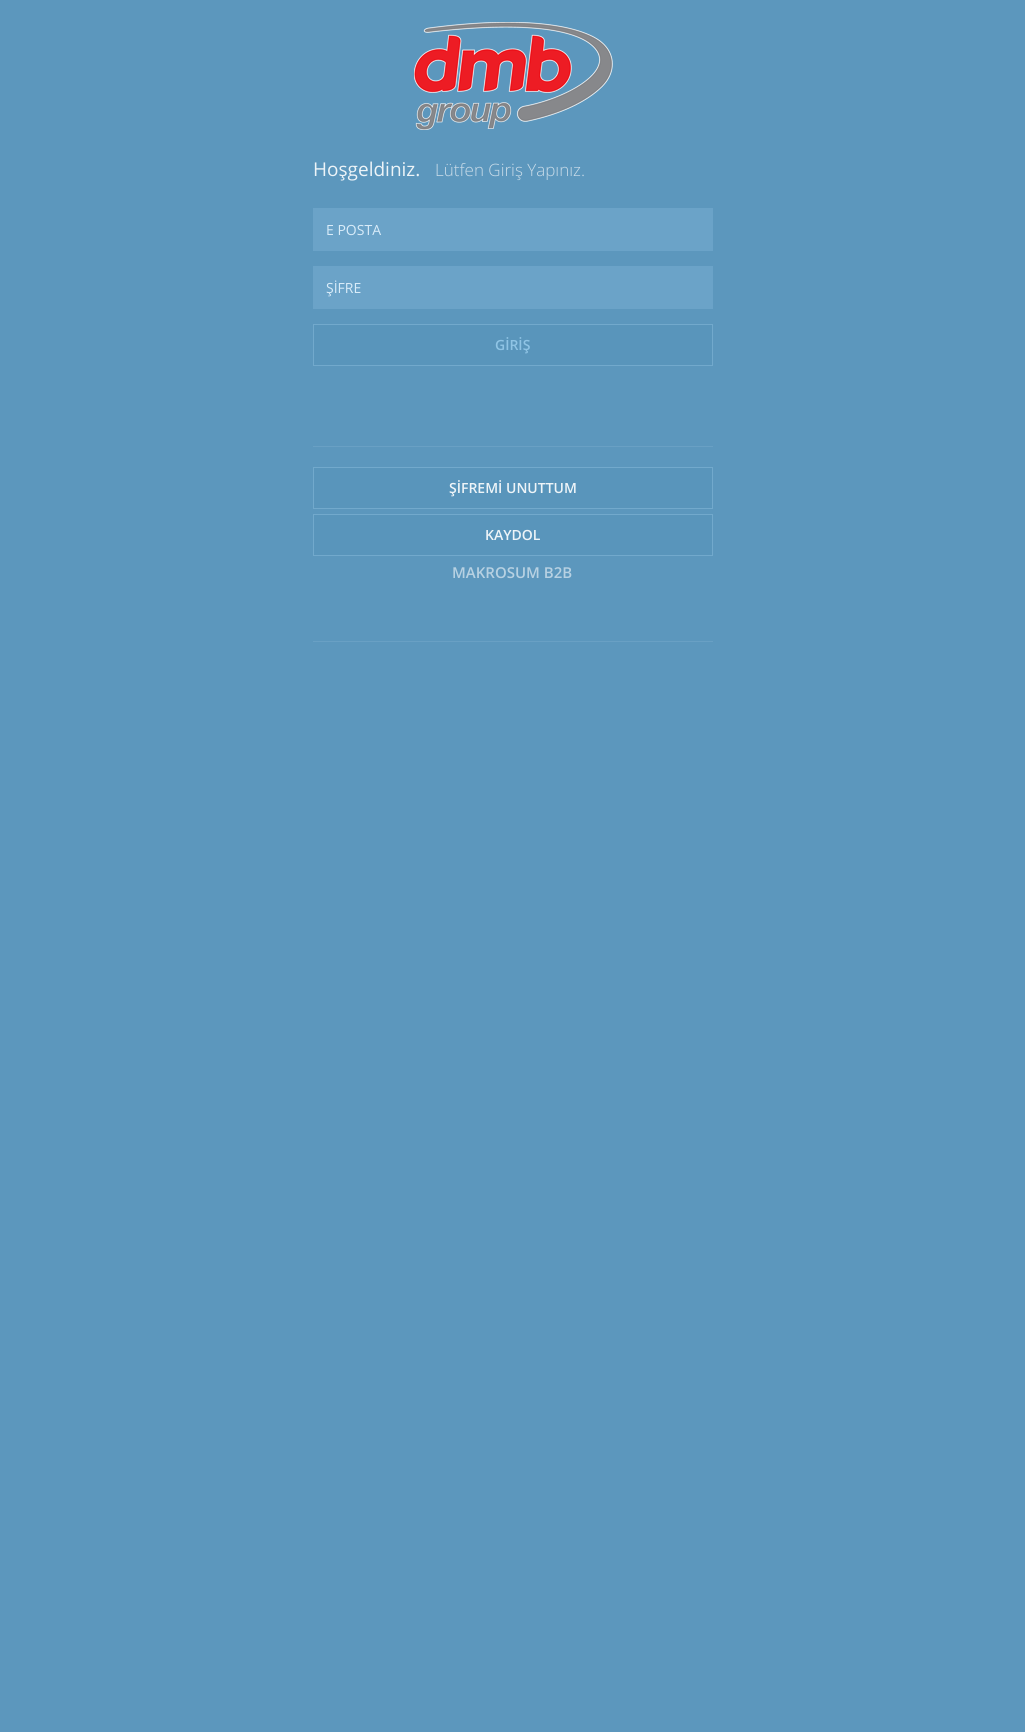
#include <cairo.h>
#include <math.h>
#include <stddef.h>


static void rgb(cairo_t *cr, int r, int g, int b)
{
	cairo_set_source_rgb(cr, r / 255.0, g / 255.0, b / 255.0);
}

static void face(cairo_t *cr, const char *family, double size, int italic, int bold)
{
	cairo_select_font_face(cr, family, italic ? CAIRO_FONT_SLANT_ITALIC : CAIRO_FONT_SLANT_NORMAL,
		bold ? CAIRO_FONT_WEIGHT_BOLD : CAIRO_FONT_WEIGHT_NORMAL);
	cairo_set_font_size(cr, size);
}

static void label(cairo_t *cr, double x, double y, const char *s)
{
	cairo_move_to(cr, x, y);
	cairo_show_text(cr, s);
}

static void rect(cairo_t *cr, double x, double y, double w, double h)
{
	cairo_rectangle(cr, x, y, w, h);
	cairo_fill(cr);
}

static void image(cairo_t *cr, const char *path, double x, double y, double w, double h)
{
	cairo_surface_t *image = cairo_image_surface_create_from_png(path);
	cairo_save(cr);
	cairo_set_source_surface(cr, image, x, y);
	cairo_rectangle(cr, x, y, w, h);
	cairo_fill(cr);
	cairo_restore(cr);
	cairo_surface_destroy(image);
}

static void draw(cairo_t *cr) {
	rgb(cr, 92, 151, 189);
	cairo_paint(cr);
	image(cr, "image0.png", 414, 22, 199, 108);
	face(cr, "Open Sans", 19, 0, 0);
	rgb(cr, 237, 244, 248);
	label(cr, 313, 176, "Hoşgeldiniz.");
	face(cr, "Open Sans Light", 17, 0, 0);
	rgb(cr, 201, 220, 233);
	label(cr, 435, 176, "Lütfen Giriş Yapınız.");
	rgb(cr, 107, 163, 200);
	rect(cr, 313, 208, 400, 43);
	face(cr, "Open Sans", 14, 0, 0);
	rgb(cr, 217, 236, 249);
	label(cr, 326, 235, "E POSTA");
	rgb(cr, 107, 163, 200);
	rect(cr, 313, 266, 400, 43);
	rgb(cr, 217, 236, 249);
	label(cr, 326, 293, "ŞİFRE");
	rgb(cr, 89, 149, 187);
	cairo_rectangle(cr, 313.5, 324.5, 399, 41);
	cairo_fill_preserve(cr);
	rgb(cr, 114, 169, 204);
	cairo_set_line_width(cr, 1);
	cairo_stroke(cr);
	face(cr, "Open Sans SemiBold", 14, 0, 0);
	rgb(cr, 143, 196, 229);
	label(cr, 495, 350, "GİRİŞ");
	rgb(cr, 105, 160, 196);
	rect(cr, 313, 446, 400, 1);
	rect(cr, 313, 641, 400, 1);
	rgb(cr, 89, 149, 187);
	cairo_rectangle(cr, 313.5, 467.5, 399, 41);
	cairo_fill_preserve(cr);
	rgb(cr, 114, 169, 204);
	cairo_stroke(cr);
	rgb(cr, 237, 244, 248);
	label(cr, 449, 493, "ŞİFREMİ UNUTTUM");
	rgb(cr, 89, 149, 187);
	cairo_rectangle(cr, 313.5, 514.5, 399, 41);
	cairo_fill_preserve(cr);
	rgb(cr, 114, 169, 204);
	cairo_stroke(cr);
	rgb(cr, 237, 244, 248);
	label(cr, 485, 540, "KAYDOL");
	face(cr, "Open Sans SemiBold", 15, 0, 0);
	rgb(cr, 183, 209, 226);
	label(cr, 452, 578, "MAKROSUM B2B");
}

int main(void) {
	cairo_surface_t *surface = cairo_image_surface_create(CAIRO_FORMAT_RGB24, 1025, 1732);
	cairo_t *cr = cairo_create(surface);
	cairo_font_options_t *options = cairo_font_options_create();
	cairo_font_options_set_hint_metrics(options, CAIRO_HINT_METRICS_OFF);
	cairo_font_options_set_hint_style(options, CAIRO_HINT_STYLE_NONE);
	cairo_set_font_options(cr, options);
	cairo_set_miter_limit(cr, 4);
	draw(cr);
	cairo_surface_write_to_png(surface, "render.png");
	cairo_font_options_destroy(options);
	cairo_destroy(cr);
	cairo_surface_destroy(surface);
	return 0;
}
